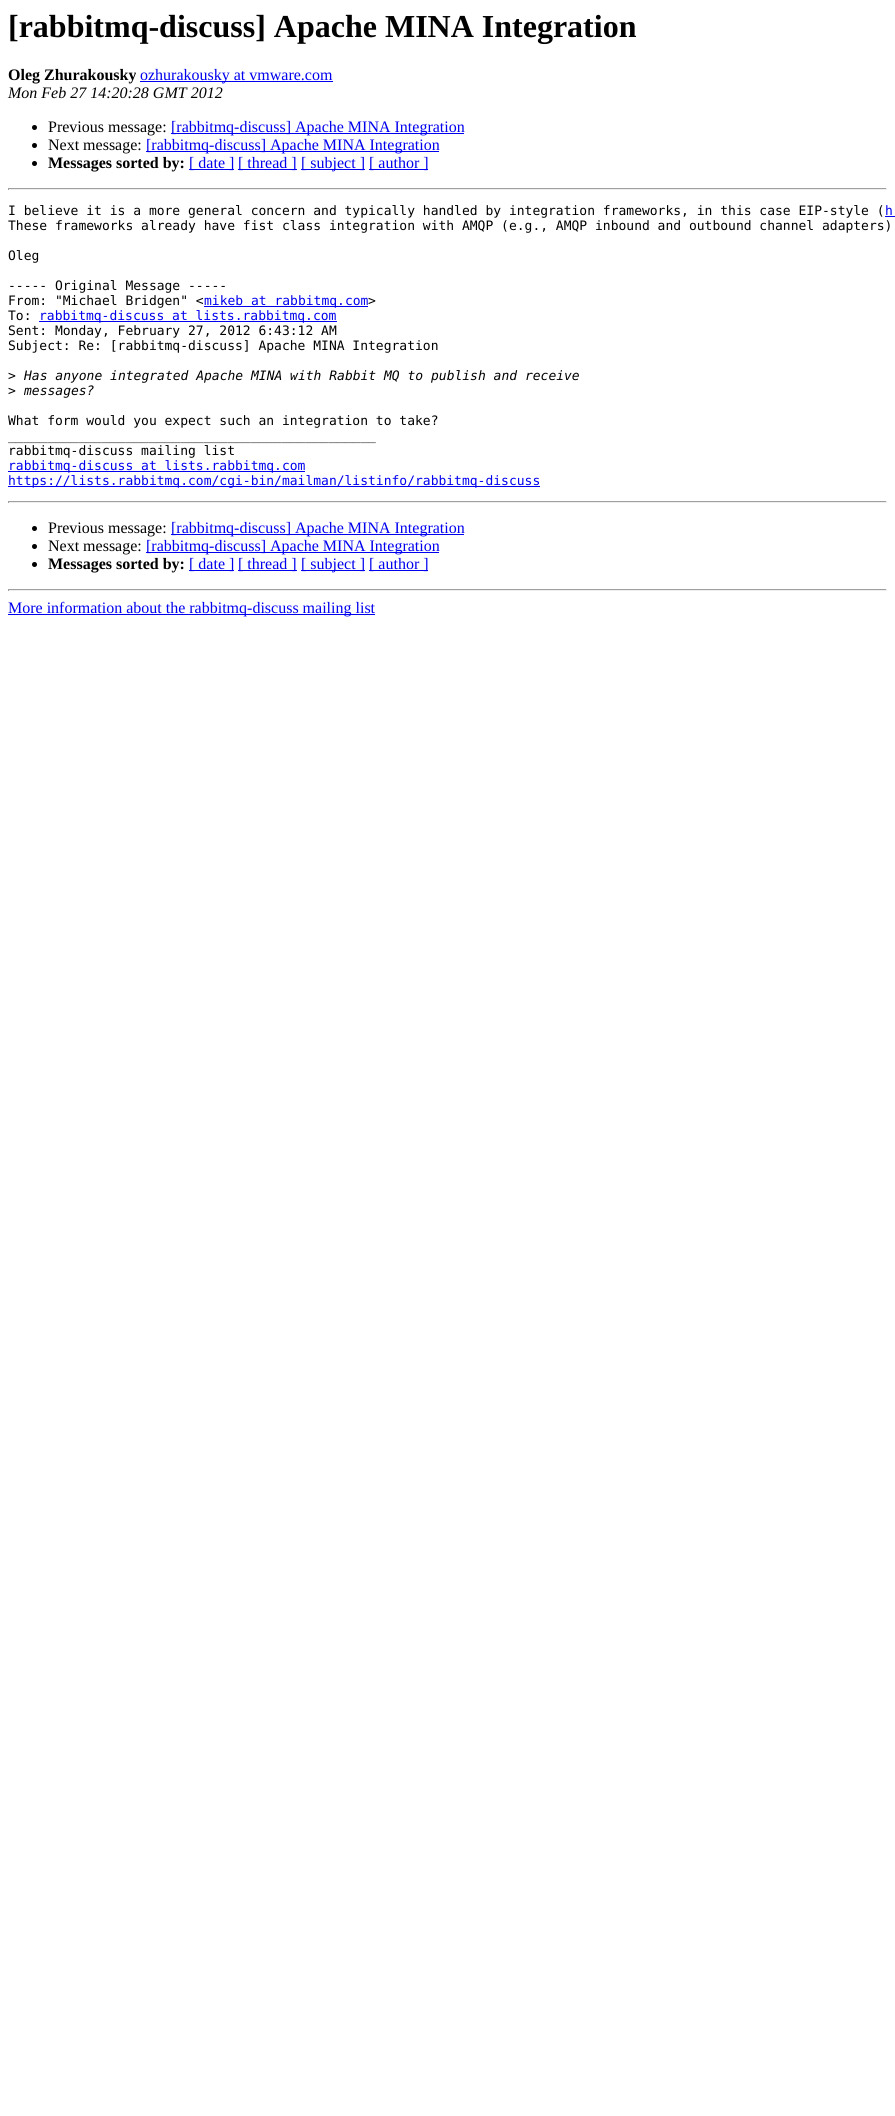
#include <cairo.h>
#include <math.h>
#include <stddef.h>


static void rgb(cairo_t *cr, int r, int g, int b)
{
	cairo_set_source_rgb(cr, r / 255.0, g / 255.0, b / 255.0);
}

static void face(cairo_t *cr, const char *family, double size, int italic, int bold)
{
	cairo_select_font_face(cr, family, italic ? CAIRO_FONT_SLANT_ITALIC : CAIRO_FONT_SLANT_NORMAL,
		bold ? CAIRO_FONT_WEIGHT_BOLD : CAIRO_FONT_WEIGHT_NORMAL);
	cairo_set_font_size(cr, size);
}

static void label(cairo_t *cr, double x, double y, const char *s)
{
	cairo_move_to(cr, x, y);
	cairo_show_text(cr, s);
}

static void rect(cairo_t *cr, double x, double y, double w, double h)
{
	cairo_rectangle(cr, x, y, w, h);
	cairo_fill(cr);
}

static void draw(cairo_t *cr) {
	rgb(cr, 255, 255, 255);
	cairo_paint(cr);
	face(cr, "Liberation Serif", 32, 0, 1);
	rgb(cr, 0, 0, 0);
	label(cr, 8, 37, "[rabbitmq-discuss] Apache MINA Integration");
	face(cr, "Liberation Serif", 16, 0, 1);
	label(cr, 8, 80, "Oleg Zhurakousky");
	rgb(cr, 0, 0, 238);
	rect(cr, 140, 81, 193, 1);
	face(cr, "Liberation Serif", 16, 0, 0);
	label(cr, 140, 80, "ozhurakousky at vmware.com");
	face(cr, "Liberation Serif", 16, 1, 0);
	rgb(cr, 0, 0, 0);
	label(cr, 8, 98, "Mon Feb 27 14:20:28 GMT 2012");
	cairo_new_path(cr);
	cairo_arc(cr, 34.5, 127.5, 2.5, 0, 2 * M_PI);
	cairo_fill(cr);
	face(cr, "Liberation Serif", 16, 0, 0);
	label(cr, 48, 132, "Previous message:");
	rgb(cr, 0, 0, 238);
	rect(cr, 171, 133, 293, 1);
	label(cr, 171, 132, "[rabbitmq-discuss] Apache MINA Integration");
	rgb(cr, 0, 0, 0);
	cairo_new_path(cr);
	cairo_arc(cr, 34.5, 145.5, 2.5, 0, 2 * M_PI);
	cairo_fill(cr);
	label(cr, 48, 150, "Next message:");
	rgb(cr, 0, 0, 238);
	rect(cr, 146, 151, 293, 1);
	label(cr, 146, 150, "[rabbitmq-discuss] Apache MINA Integration");
	rgb(cr, 0, 0, 0);
	cairo_new_path(cr);
	cairo_arc(cr, 34.5, 163.5, 2.5, 0, 2 * M_PI);
	cairo_fill(cr);
	face(cr, "Liberation Serif", 16, 0, 1);
	label(cr, 48, 168, "Messages sorted by:");
	rgb(cr, 0, 0, 238);
	rect(cr, 189, 169, 45, 1);
	face(cr, "Liberation Serif", 16, 0, 0);
	label(cr, 189, 168, "[ date ]");
	rect(cr, 238, 169, 59, 1);
	label(cr, 238, 168, "[ thread ]");
	rect(cr, 301, 169, 64, 1);
	label(cr, 301, 168, "[ subject ]");
	rect(cr, 369, 169, 59, 1);
	label(cr, 369, 168, "[ author ]");
	rgb(cr, 159, 159, 159);
	rect(cr, 8, 188, 879, 1);
	rgb(cr, 238, 238, 238);
	rect(cr, 886, 188, 1, 2);
	rect(cr, 8, 189, 879, 1);
	rgb(cr, 159, 159, 159);
	rect(cr, 8, 188, 1, 2);
	face(cr, "DejaVu Sans Mono", 13, 0, 0);
	rgb(cr, 0, 0, 0);
	label(cr, 8, 215, "I believe it is a more general concern and typically handled by integration frameworks, in this case EIP-style (");
	rgb(cr, 0, 0, 238);
	label(cr, 885, 215, "h");
	rect(cr, 885, 216, 10, 1);
	rgb(cr, 0, 0, 0);
	label(cr, 8, 230, "These frameworks already have fist class integration with AMQP (e.g., AMQP inbound and outbound channel adapters)");
	label(cr, 8, 260, "Oleg");
	label(cr, 8, 290, "----- Original Message -----");
	label(cr, 8, 305, "From: \"Michael Bridgen\" <");
	rgb(cr, 0, 0, 238);
	rect(cr, 204, 306, 164, 1);
	label(cr, 204, 305, "mikeb at rabbitmq.com");
	rgb(cr, 0, 0, 0);
	label(cr, 368, 305, ">");
	label(cr, 8, 320, "To:");
	rgb(cr, 0, 0, 238);
	rect(cr, 39, 321, 298, 1);
	label(cr, 39, 320, "rabbitmq-discuss at lists.rabbitmq.com");
	rgb(cr, 0, 0, 0);
	label(cr, 8, 335, "Sent: Monday, February 27, 2012 6:43:12 AM");
	label(cr, 8, 350, "Subject: Re: [rabbitmq-discuss] Apache MINA Integration");
	label(cr, 8, 380, ">");
	face(cr, "DejaVu Sans Mono", 13, 1, 0);
	label(cr, 24, 380, "Has anyone integrated Apache MINA with Rabbit MQ to publish and receive");
	face(cr, "DejaVu Sans Mono", 13, 0, 0);
	label(cr, 8, 395, ">");
	face(cr, "DejaVu Sans Mono", 13, 1, 0);
	label(cr, 24, 395, "messages?");
	face(cr, "DejaVu Sans Mono", 13, 0, 0);
	label(cr, 8, 425, "What form would you expect such an integration to take?");
	label(cr, 8, 440, "_______________________________________________");
	label(cr, 8, 455, "rabbitmq-discuss mailing list");
	rgb(cr, 0, 0, 238);
	rect(cr, 8, 471, 297, 1);
	label(cr, 8, 470, "rabbitmq-discuss at lists.rabbitmq.com");
	rect(cr, 8, 486, 532, 1);
	label(cr, 8, 485, "https://lists.rabbitmq.com/cgi-bin/mailman/listinfo/rabbitmq-discuss");
	rgb(cr, 159, 159, 159);
	rect(cr, 8, 501, 879, 1);
	rgb(cr, 238, 238, 238);
	rect(cr, 886, 501, 1, 2);
	rect(cr, 8, 502, 879, 1);
	rgb(cr, 159, 159, 159);
	rect(cr, 8, 501, 1, 2);
	rgb(cr, 0, 0, 0);
	cairo_new_path(cr);
	cairo_arc(cr, 34.5, 528.5, 2.5, 0, 2 * M_PI);
	cairo_fill(cr);
	face(cr, "Liberation Serif", 16, 0, 0);
	label(cr, 48, 533, "Previous message:");
	rgb(cr, 0, 0, 238);
	rect(cr, 171, 534, 293, 1);
	label(cr, 171, 533, "[rabbitmq-discuss] Apache MINA Integration");
	rgb(cr, 0, 0, 0);
	cairo_new_path(cr);
	cairo_arc(cr, 34.5, 546.5, 2.5, 0, 2 * M_PI);
	cairo_fill(cr);
	label(cr, 48, 551, "Next message:");
	rgb(cr, 0, 0, 238);
	rect(cr, 146, 552, 293, 1);
	label(cr, 146, 551, "[rabbitmq-discuss] Apache MINA Integration");
	rgb(cr, 0, 0, 0);
	cairo_new_path(cr);
	cairo_arc(cr, 34.5, 564.5, 2.5, 0, 2 * M_PI);
	cairo_fill(cr);
	face(cr, "Liberation Serif", 16, 0, 1);
	label(cr, 48, 569, "Messages sorted by:");
	rgb(cr, 0, 0, 238);
	rect(cr, 189, 570, 45, 1);
	face(cr, "Liberation Serif", 16, 0, 0);
	label(cr, 189, 569, "[ date ]");
	rect(cr, 238, 570, 59, 1);
	label(cr, 238, 569, "[ thread ]");
	rect(cr, 301, 570, 64, 1);
	label(cr, 301, 569, "[ subject ]");
	rect(cr, 369, 570, 59, 1);
	label(cr, 369, 569, "[ author ]");
	rgb(cr, 159, 159, 159);
	rect(cr, 8, 589, 879, 1);
	rgb(cr, 238, 238, 238);
	rect(cr, 886, 589, 1, 2);
	rect(cr, 8, 590, 879, 1);
	rgb(cr, 159, 159, 159);
	rect(cr, 8, 589, 1, 2);
	rgb(cr, 0, 0, 238);
	rect(cr, 8, 614, 367, 1);
	label(cr, 8, 613, "More information about the rabbitmq-discuss mailing list");
}

int main(void) {
	cairo_surface_t *surface = cairo_image_surface_create(CAIRO_FORMAT_RGB24, 895, 2116);
	cairo_t *cr = cairo_create(surface);
	cairo_font_options_t *options = cairo_font_options_create();
	cairo_font_options_set_hint_metrics(options, CAIRO_HINT_METRICS_OFF);
	cairo_font_options_set_hint_style(options, CAIRO_HINT_STYLE_NONE);
	cairo_set_font_options(cr, options);
	cairo_set_miter_limit(cr, 4);
	draw(cr);
	cairo_surface_write_to_png(surface, "render.png");
	cairo_font_options_destroy(options);
	cairo_destroy(cr);
	cairo_surface_destroy(surface);
	return 0;
}
